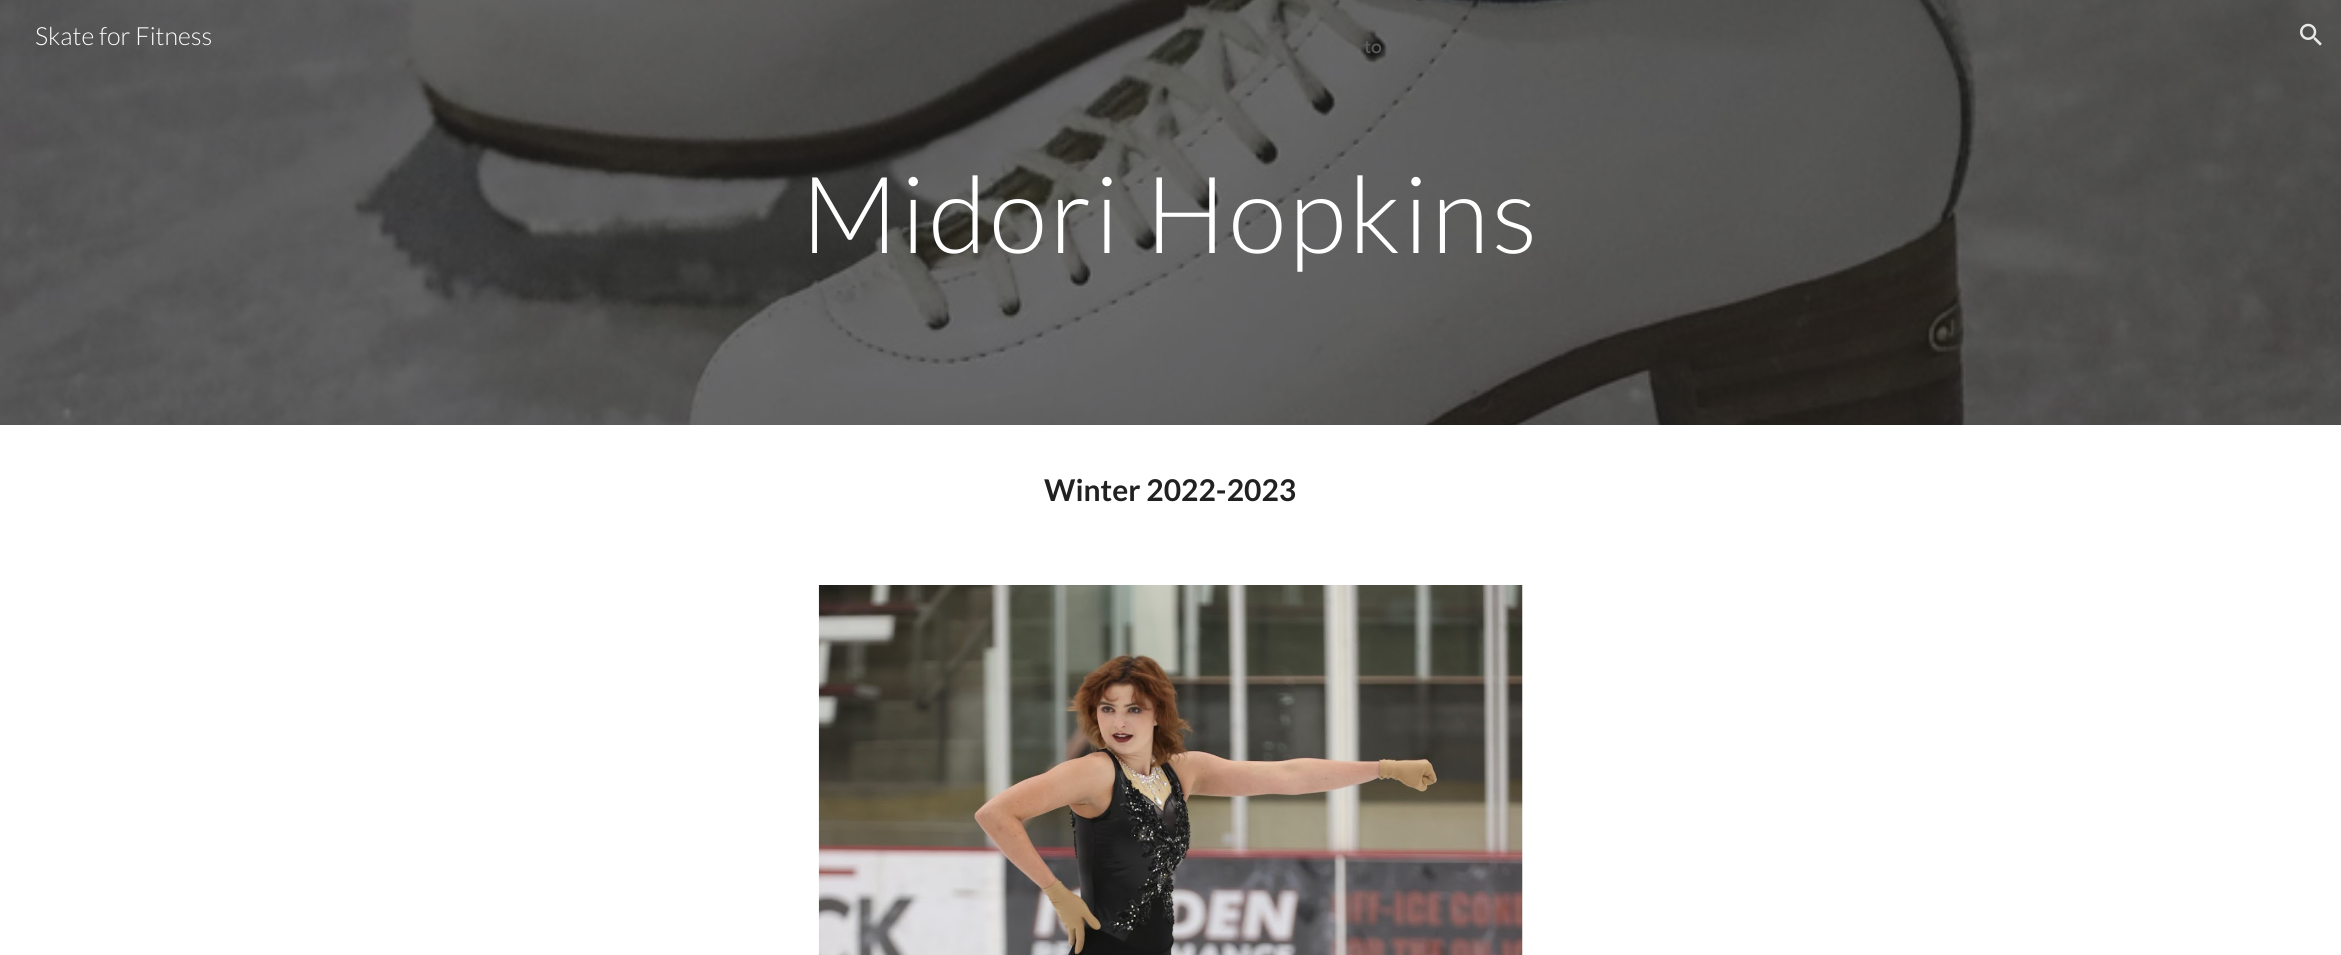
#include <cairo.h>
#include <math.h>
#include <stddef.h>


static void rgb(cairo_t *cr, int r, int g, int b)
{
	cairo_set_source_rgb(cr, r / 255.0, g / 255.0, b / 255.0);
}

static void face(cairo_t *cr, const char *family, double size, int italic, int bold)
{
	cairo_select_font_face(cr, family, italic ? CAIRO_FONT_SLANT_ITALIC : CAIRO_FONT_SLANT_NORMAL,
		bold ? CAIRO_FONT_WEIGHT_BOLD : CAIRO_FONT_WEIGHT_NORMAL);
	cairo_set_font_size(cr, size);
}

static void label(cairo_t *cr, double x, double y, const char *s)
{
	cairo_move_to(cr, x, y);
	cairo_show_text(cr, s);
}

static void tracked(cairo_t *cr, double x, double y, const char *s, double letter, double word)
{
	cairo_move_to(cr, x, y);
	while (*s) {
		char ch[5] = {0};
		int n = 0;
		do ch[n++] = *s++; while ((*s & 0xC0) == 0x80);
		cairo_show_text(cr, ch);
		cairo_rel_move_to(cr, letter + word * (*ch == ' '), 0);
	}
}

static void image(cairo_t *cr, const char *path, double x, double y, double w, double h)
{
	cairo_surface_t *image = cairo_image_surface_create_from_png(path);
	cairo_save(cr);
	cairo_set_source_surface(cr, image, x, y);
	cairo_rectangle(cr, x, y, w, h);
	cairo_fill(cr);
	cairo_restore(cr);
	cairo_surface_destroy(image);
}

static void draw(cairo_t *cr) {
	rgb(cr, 255, 255, 255);
	cairo_paint(cr);
	image(cr, "image1.png", 0, 0, 2341, 425);
	face(cr, "Lato Light", 25, 0, 0);
	rgb(cr, 255, 255, 255);
	label(cr, 35, 45, "Skate for Fitness");
	image(cr, "image0.png", 2300, 23, 22, 23);
	face(cr, "Lato Light", 106.75, 0, 0);
	tracked(cr, 801, 253, "Midori Hopkins", 2.5, 0);
	face(cr, "Lato", 30, 0, 1);
	rgb(cr, 33, 33, 33);
	label(cr, 1044, 501, "Winter 2022-2023");
	image(cr, "image2.png", 818, 585, 705, 370);
	face(cr, "Google Sans Medium", 18, 0, 0);
	rgb(cr, 89, 89, 88);
	label(cr, 1364, 53, "to");
}

int main(void) {
	cairo_surface_t *surface = cairo_image_surface_create(CAIRO_FORMAT_RGB24, 2341, 955);
	cairo_t *cr = cairo_create(surface);
	cairo_font_options_t *options = cairo_font_options_create();
	cairo_font_options_set_hint_metrics(options, CAIRO_HINT_METRICS_OFF);
	cairo_font_options_set_hint_style(options, CAIRO_HINT_STYLE_NONE);
	cairo_set_font_options(cr, options);
	cairo_set_miter_limit(cr, 4);
	draw(cr);
	cairo_surface_write_to_png(surface, "render.png");
	cairo_font_options_destroy(options);
	cairo_destroy(cr);
	cairo_surface_destroy(surface);
	return 0;
}
